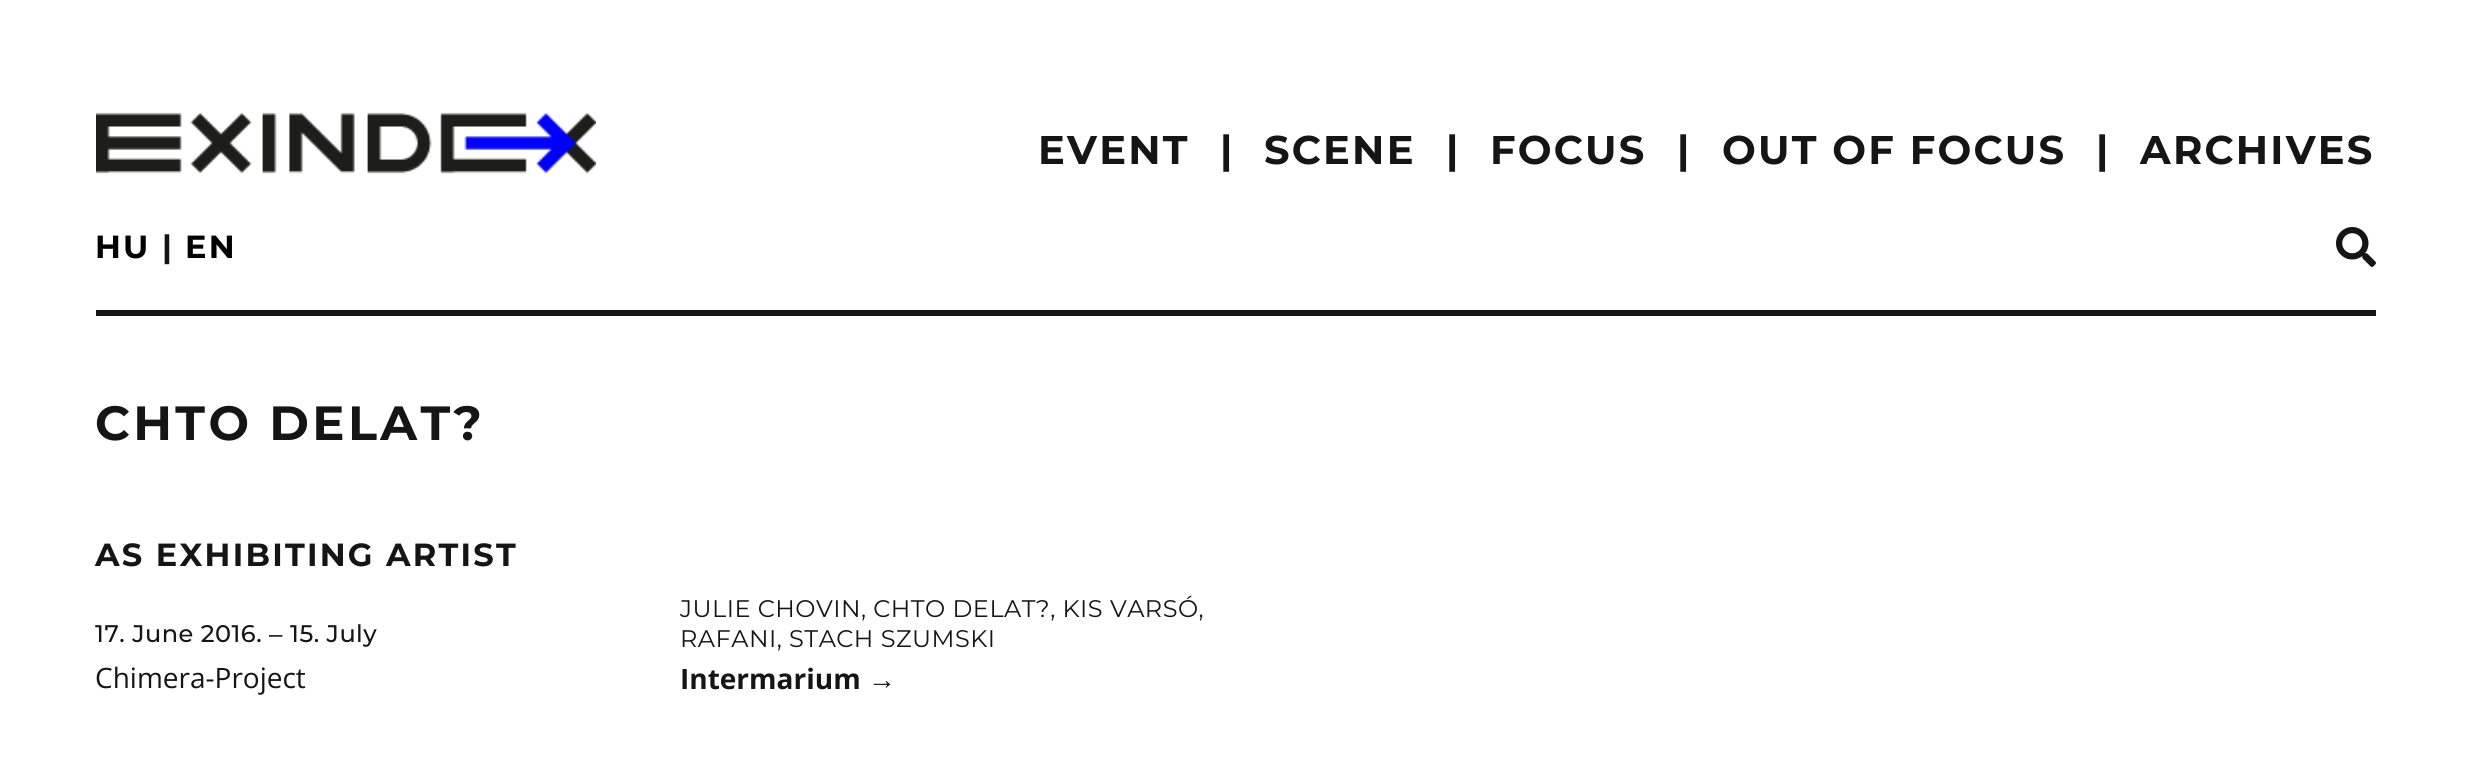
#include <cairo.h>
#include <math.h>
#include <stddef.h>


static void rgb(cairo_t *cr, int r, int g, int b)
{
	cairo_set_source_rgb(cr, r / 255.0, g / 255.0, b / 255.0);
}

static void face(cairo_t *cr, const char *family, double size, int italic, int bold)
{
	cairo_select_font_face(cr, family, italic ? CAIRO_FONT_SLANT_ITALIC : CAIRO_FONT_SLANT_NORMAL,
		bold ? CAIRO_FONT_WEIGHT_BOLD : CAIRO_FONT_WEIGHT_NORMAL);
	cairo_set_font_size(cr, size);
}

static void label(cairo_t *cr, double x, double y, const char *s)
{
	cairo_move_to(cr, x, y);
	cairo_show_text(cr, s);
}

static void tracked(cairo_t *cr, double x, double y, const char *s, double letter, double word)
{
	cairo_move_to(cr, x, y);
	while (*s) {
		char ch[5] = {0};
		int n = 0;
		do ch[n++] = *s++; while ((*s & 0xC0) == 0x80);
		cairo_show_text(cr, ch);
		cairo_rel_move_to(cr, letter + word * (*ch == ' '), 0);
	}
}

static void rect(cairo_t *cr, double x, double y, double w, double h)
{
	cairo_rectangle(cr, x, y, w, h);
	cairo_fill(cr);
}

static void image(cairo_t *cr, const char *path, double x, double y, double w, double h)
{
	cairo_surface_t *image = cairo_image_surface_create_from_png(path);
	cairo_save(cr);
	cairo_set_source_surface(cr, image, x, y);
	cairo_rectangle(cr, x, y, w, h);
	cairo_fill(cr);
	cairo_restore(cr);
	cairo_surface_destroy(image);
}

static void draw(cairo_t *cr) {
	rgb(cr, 255, 255, 255);
	cairo_paint(cr);
	image(cr, "image0.png", 96, 112, 500, 62);
	face(cr, "Montserrat", 40, 0, 1);
	rgb(cr, 21, 21, 21);
	tracked(cr, 1038, 164, "EVENT", 2.25, 0);
	tracked(cr, 1220, 164, "|", 2.25, 0);
	tracked(cr, 1264, 164, "SCENE", 2.25, 0);
	tracked(cr, 1446, 164, "|", 2.25, 0);
	tracked(cr, 1490, 164, "FOCUS", 2.25, 0);
	tracked(cr, 1677, 164, "|", 2.25, 0);
	tracked(cr, 1722, 164, "OUT OF FOCUS", 2.25, 0);
	tracked(cr, 2096, 164, "|", 2.25, 0);
	tracked(cr, 2140, 164, "ARCHIVES", 2.25, 0);
	face(cr, "Montserrat", 32, 0, 1);
	rgb(cr, 0, 0, 0);
	tracked(cr, 95, 258, "HU", 2.25, 0);
	rgb(cr, 21, 21, 21);
	tracked(cr, 162, 258, "|", 2.25, 0);
	rgb(cr, 0, 0, 0);
	tracked(cr, 185, 258, "EN", 2.25, 0);
	image(cr, "image1.png", 2336, 227, 40, 40);
	rgb(cr, 21, 21, 21);
	rect(cr, 96, 310, 2280, 6);
	face(cr, "Montserrat", 48, 0, 1);
	tracked(cr, 95, 440, "CHTO DELAT?", 3.4, 0);
	face(cr, "Montserrat", 32, 0, 1);
	tracked(cr, 95, 566, "AS EXHIBITING ARTIST", 2.25, 0);
	face(cr, "Montserrat Medium", 24, 0, 0);
	tracked(cr, 95, 642, "17. June 2016.", 0.5, 0);
	face(cr, "Liberation Sans", 24, 0, 0);
	tracked(cr, 269, 642, "‒", 0.5, 0);
	face(cr, "Montserrat Medium", 24, 0, 0);
	tracked(cr, 290, 642, "15. July", 0.5, 0);
	face(cr, "Open Sans", 28, 0, 0);
	label(cr, 95, 688, "Chimera-Project");
	face(cr, "Montserrat", 24, 0, 0);
	tracked(cr, 680, 617, "JULIE CHOVIN, CHTO DELAT?, KIS VARSÓ,", 0.5, 0);
	tracked(cr, 680, 647, "RAFANI, STACH SZUMSKI", 0.5, 0);
	face(cr, "Open Sans", 28, 0, 1);
	label(cr, 680, 689, "Intermarium");
	face(cr, "Liberation Sans", 28, 0, 1);
	label(cr, 868, 689, "→");
}

int main(void) {
	cairo_surface_t *surface = cairo_image_surface_create(CAIRO_FORMAT_RGB24, 2470, 760);
	cairo_t *cr = cairo_create(surface);
	cairo_font_options_t *options = cairo_font_options_create();
	cairo_font_options_set_hint_metrics(options, CAIRO_HINT_METRICS_OFF);
	cairo_font_options_set_hint_style(options, CAIRO_HINT_STYLE_NONE);
	cairo_set_font_options(cr, options);
	cairo_set_miter_limit(cr, 4);
	draw(cr);
	cairo_surface_write_to_png(surface, "render.png");
	cairo_font_options_destroy(options);
	cairo_destroy(cr);
	cairo_surface_destroy(surface);
	return 0;
}
